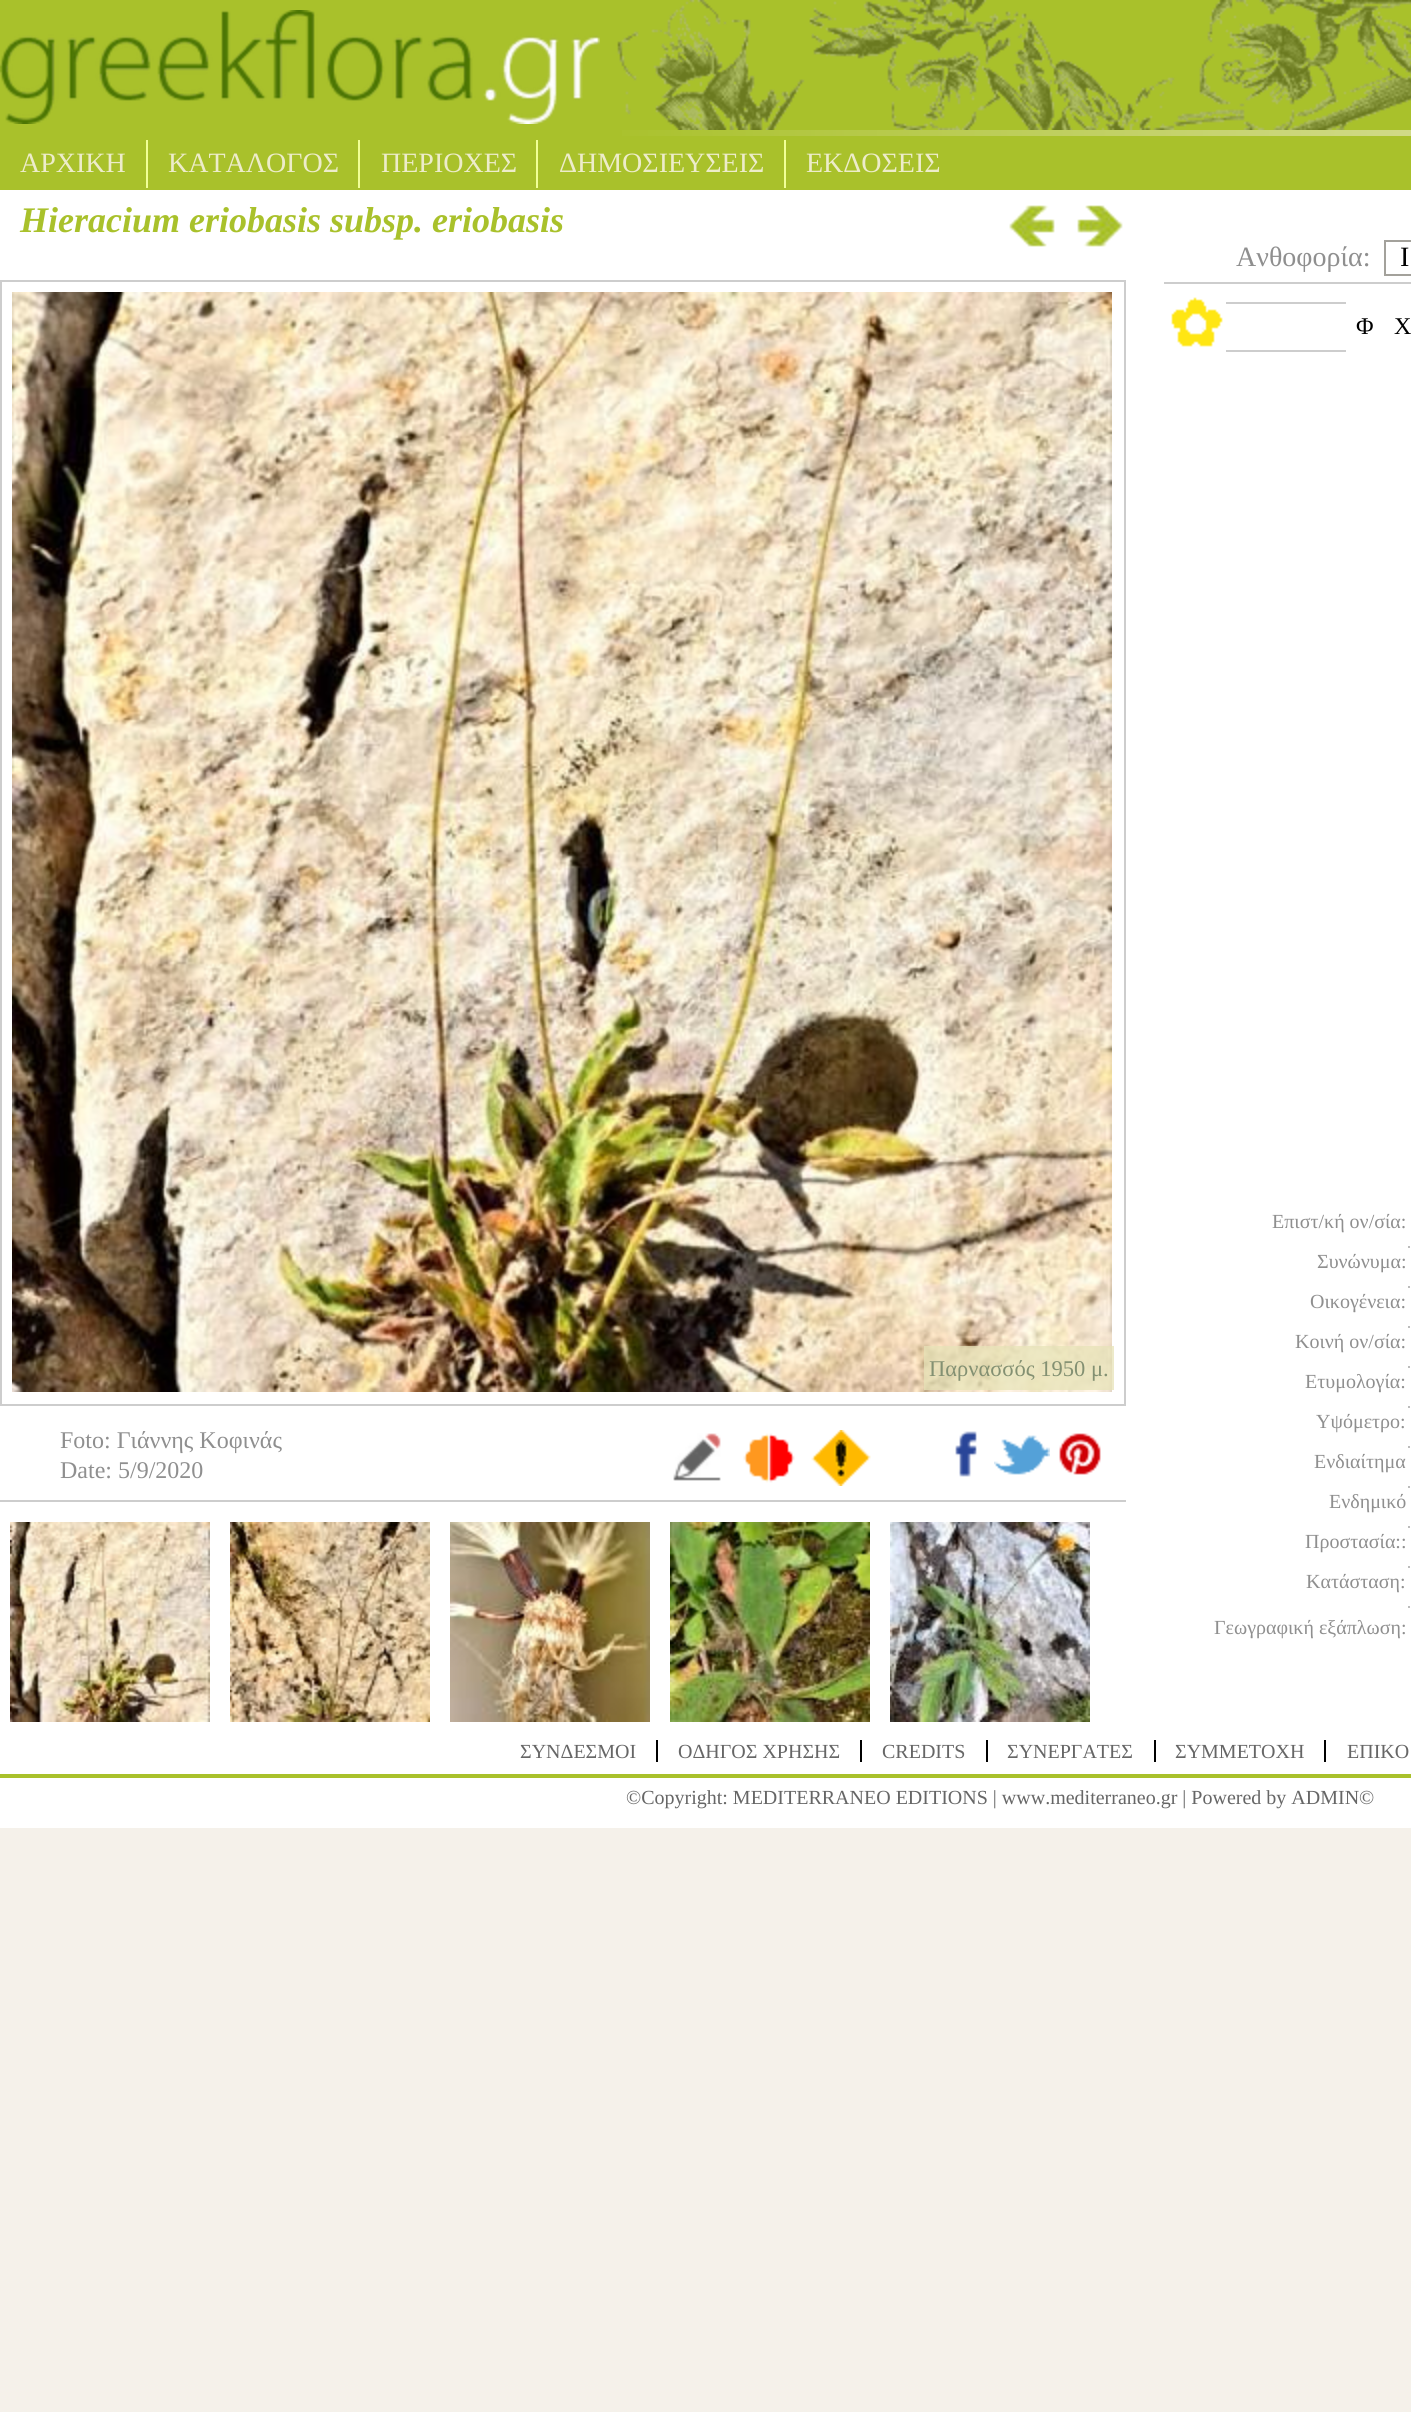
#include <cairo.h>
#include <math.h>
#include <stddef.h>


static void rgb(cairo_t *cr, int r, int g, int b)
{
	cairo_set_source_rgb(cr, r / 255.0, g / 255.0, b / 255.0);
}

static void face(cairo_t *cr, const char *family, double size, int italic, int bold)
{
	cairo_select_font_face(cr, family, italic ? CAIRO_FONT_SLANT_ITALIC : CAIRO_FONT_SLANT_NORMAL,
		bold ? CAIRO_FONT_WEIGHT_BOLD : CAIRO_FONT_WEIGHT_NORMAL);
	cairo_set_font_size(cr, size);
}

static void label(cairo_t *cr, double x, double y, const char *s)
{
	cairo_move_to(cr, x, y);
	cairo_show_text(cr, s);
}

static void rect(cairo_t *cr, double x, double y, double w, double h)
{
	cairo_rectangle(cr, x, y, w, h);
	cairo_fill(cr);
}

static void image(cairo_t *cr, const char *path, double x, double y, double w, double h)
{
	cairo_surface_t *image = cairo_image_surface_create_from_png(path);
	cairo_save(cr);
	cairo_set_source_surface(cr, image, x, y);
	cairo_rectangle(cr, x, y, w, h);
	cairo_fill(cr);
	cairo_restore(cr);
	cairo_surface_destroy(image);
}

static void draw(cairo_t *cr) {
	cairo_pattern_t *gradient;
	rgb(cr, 245, 241, 234);
	cairo_paint(cr);
	rgb(cr, 169, 193, 43);
	rect(cr, 0, 0, 1411, 190);
	image(cr, "image0.png", 0, 10, 600, 114);
	image(cr, "image1.png", 617, 0, 794, 130);
	gradient = cairo_pattern_create_linear(600, 133, 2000, 133);
	cairo_pattern_add_color_stop_rgba(gradient, 0, 0.663, 0.757, 0.169, 1);
	cairo_pattern_add_color_stop_rgba(gradient, 1, 0.929, 0.925, 0.792, 1);
	cairo_set_source(cr, gradient);
	cairo_pattern_destroy(gradient);
	rect(cr, 622, 130, 789, 6);
	rgb(cr, 241, 255, 151);
	rect(cr, 146, 140, 2, 48);
	face(cr, "Liberation Serif", 28, 0, 0);
	rgb(cr, 237, 236, 202);
	label(cr, 20, 172, "ΑΡΧΙΚΗ");
	rgb(cr, 241, 255, 151);
	rect(cr, 358, 140, 2, 48);
	rgb(cr, 237, 236, 202);
	label(cr, 168, 172, "ΚΑΤΑΛΟΓΟΣ");
	rgb(cr, 241, 255, 151);
	rect(cr, 536, 140, 2, 48);
	rgb(cr, 237, 236, 202);
	label(cr, 381, 172, "ΠΕΡΙΟΧΕΣ");
	rgb(cr, 241, 255, 151);
	rect(cr, 784, 140, 2, 48);
	rgb(cr, 237, 236, 202);
	label(cr, 559, 172, "ΔΗΜΟΣΙΕΥΣΕΙΣ");
	label(cr, 806, 172, "ΕΚΔΟΣΕΙΣ");
	rgb(cr, 255, 255, 255);
	rect(cr, 0, 190, 1411, 1638);
	face(cr, "Liberation Serif", 36, 1, 1);
	rgb(cr, 169, 193, 43);
	label(cr, 20, 232, "Hieracium eriobasis subsp. eriobasis");
	image(cr, "image2.png", 1009, 205, 46, 42);
	image(cr, "image3.png", 1077, 205, 46, 42);
	face(cr, "Liberation Serif", 28, 0, 0);
	rgb(cr, 143, 143, 143);
	label(cr, 1236, 266, "Ανθοφορία:");
	cairo_rectangle(cr, 1385, 241, 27, 34);
	rgb(cr, 163, 161, 155);
	cairo_stroke(cr);
	rgb(cr, 0, 0, 0);
	label(cr, 1400, 266, "Ι");
	cairo_rectangle(cr, 1, 281, 1124, 1124);
	rgb(cr, 205, 205, 205);
	cairo_stroke(cr);
	image(cr, "image4.png", 12, 292, 1100, 1100);
	cairo_set_source_rgba(cr, 0.902, 0.89, 0.722, 0.75);
	rect(cr, 924, 1346, 190, 44);
	face(cr, "Liberation Serif", 22.5, 0, 0);
	rgb(cr, 131, 144, 114);
	label(cr, 929, 1376, "Παρνασσός 1950 μ.");
	rgb(cr, 205, 205, 205);
	rect(cr, 0, 1500, 1126, 2);
	face(cr, "Liberation Serif", 24, 0, 0);
	rgb(cr, 143, 143, 143);
	label(cr, 60, 1448, "Foto: Γιάννης Κοφινάς");
	label(cr, 60, 1478, "Date: 5/9/2020");
	image(cr, "image5.png", 673, 1433, 48, 48);
	image(cr, "image6.png", 743, 1433, 52, 50);
	image(cr, "image7.png", 811, 1430, 60, 56);
	image(cr, "image8.png", 955, 1431, 22, 46);
	image(cr, "image9.png", 994, 1435, 56, 40);
	image(cr, "image10.png", 1059, 1433, 42, 42);
	image(cr, "image11.png", 10, 1522, 200, 200);
	image(cr, "image12.png", 230, 1522, 200, 200);
	image(cr, "image13.png", 450, 1522, 200, 200);
	image(cr, "image14.png", 670, 1522, 200, 200);
	image(cr, "image15.png", 890, 1522, 200, 200);
	rgb(cr, 205, 205, 205);
	rect(cr, 1164, 282, 247, 2);
	rgb(cr, 255, 230, 19);
	rect(cr, 1171, 297, 52, 50);
	image(cr, "image16.png", 1164, 294, 62, 62);
	rgb(cr, 205, 205, 205);
	rect(cr, 1226, 302, 120, 2);
	rect(cr, 1226, 350, 120, 2);
	rgb(cr, 0, 0, 0);
	label(cr, 1356, 334, "Φ");
	label(cr, 1394, 334, "Χ");
	face(cr, "Liberation Serif", 20, 0, 0);
	rgb(cr, 143, 143, 143);
	label(cr, 1272, 1228, "Επιστ/κή ον/σία:");
	cairo_new_path(cr);
	cairo_move_to(cr, 1408, 1247);
	cairo_line_to(cr, 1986, 1247);
	cairo_move_to(cr, 1408, 1287);
	cairo_line_to(cr, 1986, 1287);
	rgb(cr, 188, 188, 188);
	cairo_set_dash(cr, (double[]){2, 2}, 2, 0);
	cairo_stroke(cr);
	rgb(cr, 143, 143, 143);
	label(cr, 1317, 1268, "Συνώνυμα:");
	label(cr, 1310, 1308, "Οικογένεια:");
	cairo_new_path(cr);
	cairo_move_to(cr, 1408, 1327);
	cairo_line_to(cr, 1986, 1327);
	cairo_move_to(cr, 1408, 1367);
	cairo_line_to(cr, 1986, 1367);
	rgb(cr, 188, 188, 188);
	cairo_stroke(cr);
	rgb(cr, 143, 143, 143);
	label(cr, 1295, 1348, "Κοινή ον/σία:");
	label(cr, 1305, 1388, "Ετυμολογία:");
	cairo_new_path(cr);
	cairo_move_to(cr, 1408, 1407);
	cairo_line_to(cr, 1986, 1407);
	cairo_move_to(cr, 1408, 1447);
	cairo_line_to(cr, 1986, 1447);
	rgb(cr, 188, 188, 188);
	cairo_stroke(cr);
	rgb(cr, 143, 143, 143);
	label(cr, 1316, 1428, "Υψόμετρο:");
	label(cr, 1314, 1468, "Ενδιαίτημα");
	cairo_new_path(cr);
	cairo_move_to(cr, 1408, 1487);
	cairo_line_to(cr, 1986, 1487);
	cairo_move_to(cr, 1408, 1527);
	cairo_line_to(cr, 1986, 1527);
	rgb(cr, 188, 188, 188);
	cairo_stroke(cr);
	rgb(cr, 143, 143, 143);
	label(cr, 1329, 1508, "Ενδημικό");
	label(cr, 1305, 1548, "Προστασία::");
	cairo_new_path(cr);
	cairo_move_to(cr, 1408, 1567);
	cairo_line_to(cr, 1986, 1567);
	cairo_move_to(cr, 1408, 1607);
	cairo_line_to(cr, 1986, 1607);
	rgb(cr, 188, 188, 188);
	cairo_stroke(cr);
	rgb(cr, 143, 143, 143);
	label(cr, 1306, 1588, "Κατάσταση:");
	label(cr, 1214, 1634, "Γεωγραφική εξάπλωση:");
	rgb(cr, 0, 0, 0);
	rect(cr, 656, 1740, 2, 22);
	rgb(cr, 102, 102, 102);
	label(cr, 520, 1758, "ΣΥΝΔΕΣΜΟΙ");
	rgb(cr, 0, 0, 0);
	rect(cr, 860, 1740, 2, 22);
	rgb(cr, 102, 102, 102);
	label(cr, 678, 1758, "ΟΔΗΓΟΣ ΧΡΗΣΗΣ");
	rgb(cr, 0, 0, 0);
	rect(cr, 986, 1740, 2, 22);
	rgb(cr, 102, 102, 102);
	label(cr, 882, 1758, "CREDITS");
	rgb(cr, 0, 0, 0);
	rect(cr, 1154, 1740, 2, 22);
	rgb(cr, 102, 102, 102);
	label(cr, 1007, 1758, "ΣΥΝΕΡΓΑΤΕΣ");
	rgb(cr, 0, 0, 0);
	rect(cr, 1324, 1740, 2, 22);
	rgb(cr, 102, 102, 102);
	label(cr, 1175, 1758, "ΣΥΜΜΕΤΟΧΗ");
	label(cr, 1347, 1758, "ΕΠΙΚΟ");
	rgb(cr, 169, 193, 43);
	rect(cr, 0, 1774, 1411, 4);
	rgb(cr, 102, 102, 102);
	label(cr, 626, 1804, "©Copyright: MEDITERRANEO EDITIONS | www.mediterraneo.gr | Powered by ADMIN©");
}

int main(void) {
	cairo_surface_t *surface = cairo_image_surface_create(CAIRO_FORMAT_RGB24, 1411, 2412);
	cairo_t *cr = cairo_create(surface);
	cairo_font_options_t *options = cairo_font_options_create();
	cairo_font_options_set_hint_metrics(options, CAIRO_HINT_METRICS_OFF);
	cairo_font_options_set_hint_style(options, CAIRO_HINT_STYLE_NONE);
	cairo_set_font_options(cr, options);
	cairo_set_miter_limit(cr, 4);
	draw(cr);
	cairo_surface_write_to_png(surface, "render.png");
	cairo_font_options_destroy(options);
	cairo_destroy(cr);
	cairo_surface_destroy(surface);
	return 0;
}
